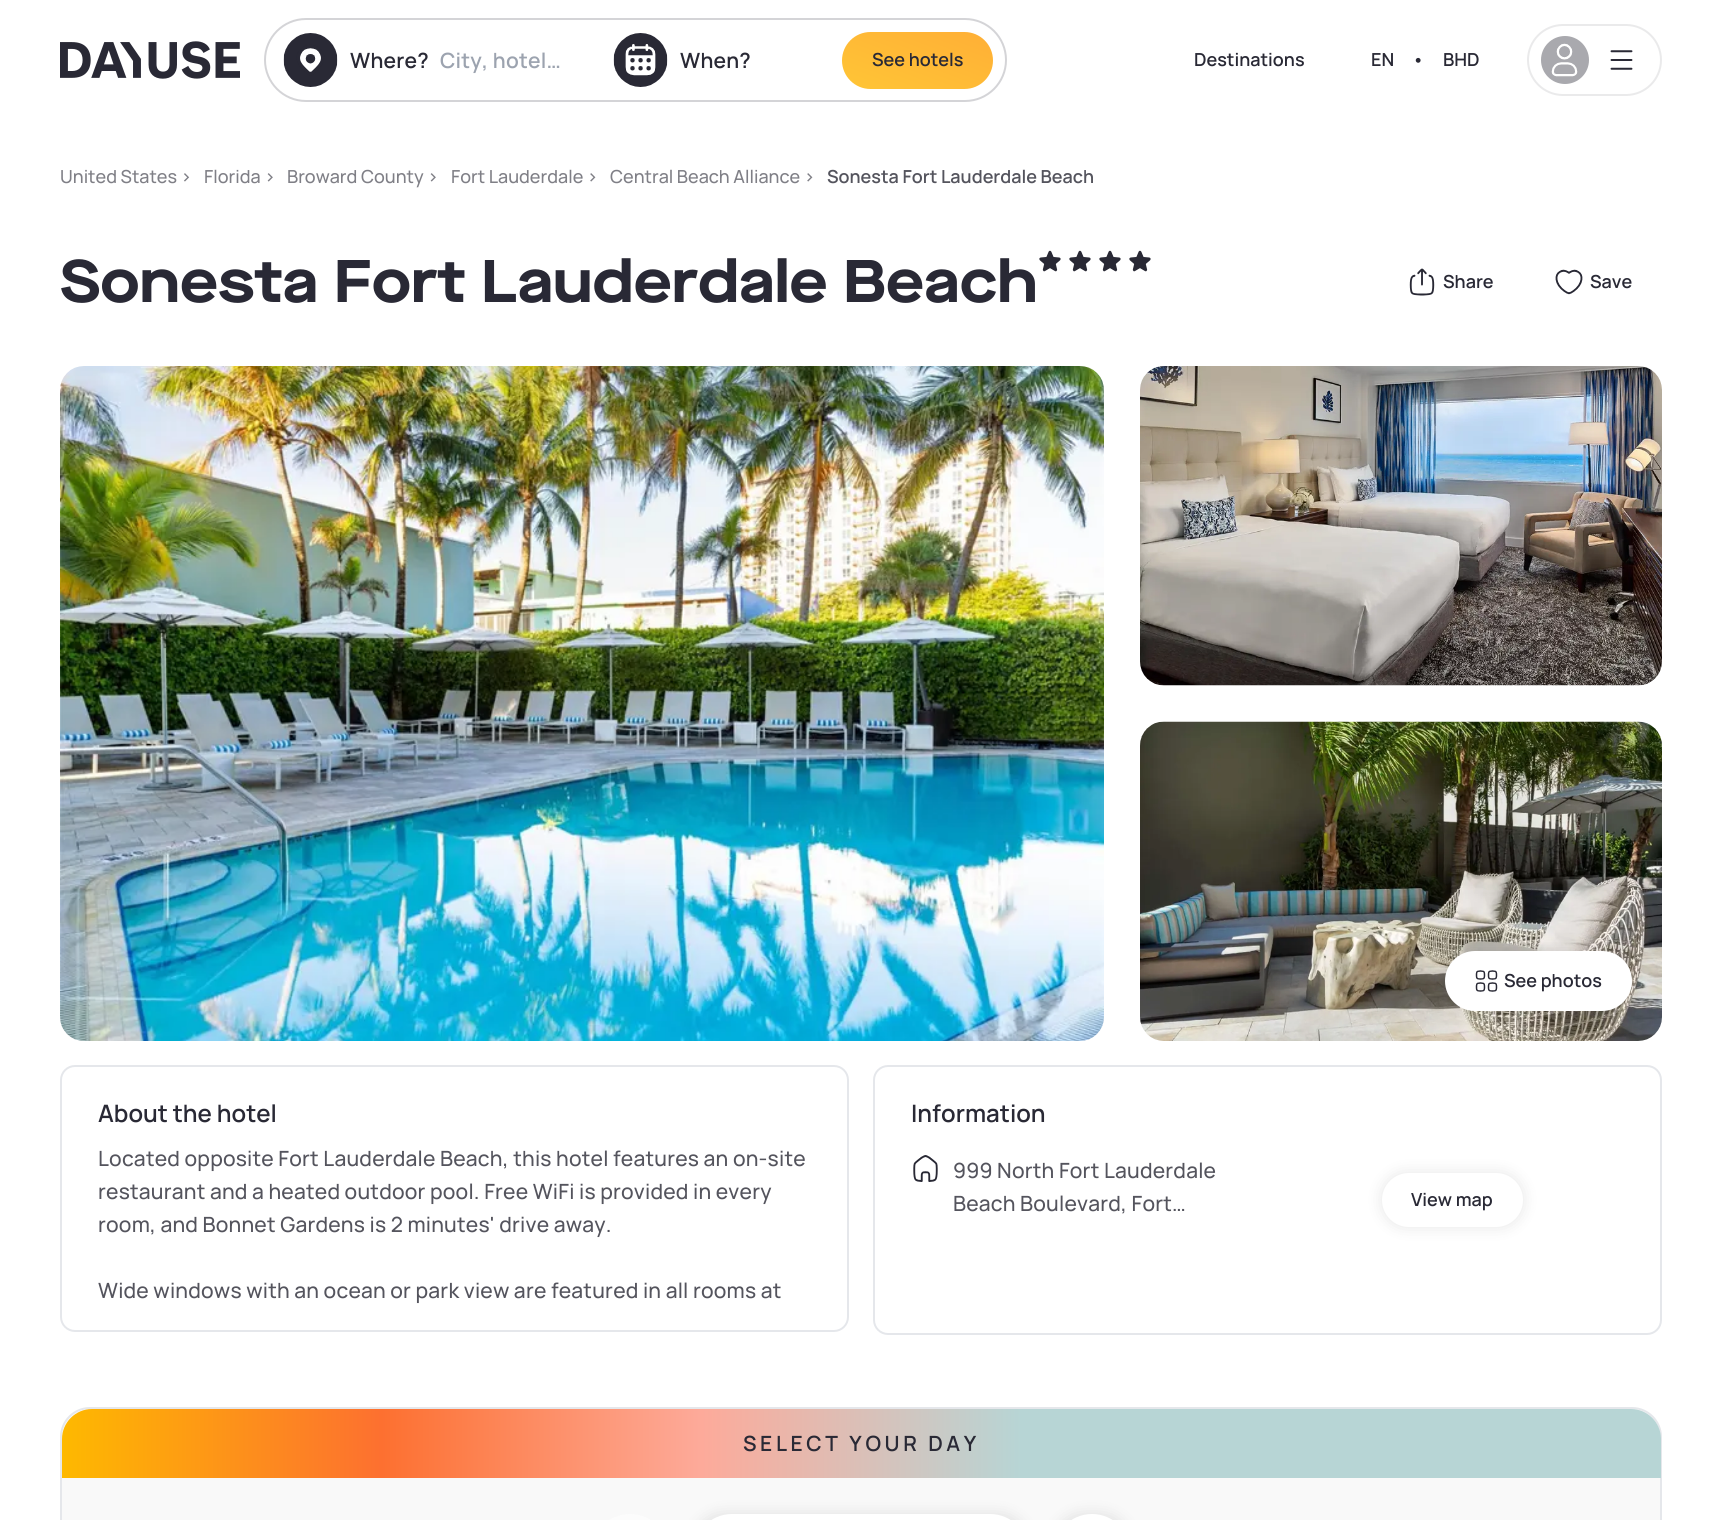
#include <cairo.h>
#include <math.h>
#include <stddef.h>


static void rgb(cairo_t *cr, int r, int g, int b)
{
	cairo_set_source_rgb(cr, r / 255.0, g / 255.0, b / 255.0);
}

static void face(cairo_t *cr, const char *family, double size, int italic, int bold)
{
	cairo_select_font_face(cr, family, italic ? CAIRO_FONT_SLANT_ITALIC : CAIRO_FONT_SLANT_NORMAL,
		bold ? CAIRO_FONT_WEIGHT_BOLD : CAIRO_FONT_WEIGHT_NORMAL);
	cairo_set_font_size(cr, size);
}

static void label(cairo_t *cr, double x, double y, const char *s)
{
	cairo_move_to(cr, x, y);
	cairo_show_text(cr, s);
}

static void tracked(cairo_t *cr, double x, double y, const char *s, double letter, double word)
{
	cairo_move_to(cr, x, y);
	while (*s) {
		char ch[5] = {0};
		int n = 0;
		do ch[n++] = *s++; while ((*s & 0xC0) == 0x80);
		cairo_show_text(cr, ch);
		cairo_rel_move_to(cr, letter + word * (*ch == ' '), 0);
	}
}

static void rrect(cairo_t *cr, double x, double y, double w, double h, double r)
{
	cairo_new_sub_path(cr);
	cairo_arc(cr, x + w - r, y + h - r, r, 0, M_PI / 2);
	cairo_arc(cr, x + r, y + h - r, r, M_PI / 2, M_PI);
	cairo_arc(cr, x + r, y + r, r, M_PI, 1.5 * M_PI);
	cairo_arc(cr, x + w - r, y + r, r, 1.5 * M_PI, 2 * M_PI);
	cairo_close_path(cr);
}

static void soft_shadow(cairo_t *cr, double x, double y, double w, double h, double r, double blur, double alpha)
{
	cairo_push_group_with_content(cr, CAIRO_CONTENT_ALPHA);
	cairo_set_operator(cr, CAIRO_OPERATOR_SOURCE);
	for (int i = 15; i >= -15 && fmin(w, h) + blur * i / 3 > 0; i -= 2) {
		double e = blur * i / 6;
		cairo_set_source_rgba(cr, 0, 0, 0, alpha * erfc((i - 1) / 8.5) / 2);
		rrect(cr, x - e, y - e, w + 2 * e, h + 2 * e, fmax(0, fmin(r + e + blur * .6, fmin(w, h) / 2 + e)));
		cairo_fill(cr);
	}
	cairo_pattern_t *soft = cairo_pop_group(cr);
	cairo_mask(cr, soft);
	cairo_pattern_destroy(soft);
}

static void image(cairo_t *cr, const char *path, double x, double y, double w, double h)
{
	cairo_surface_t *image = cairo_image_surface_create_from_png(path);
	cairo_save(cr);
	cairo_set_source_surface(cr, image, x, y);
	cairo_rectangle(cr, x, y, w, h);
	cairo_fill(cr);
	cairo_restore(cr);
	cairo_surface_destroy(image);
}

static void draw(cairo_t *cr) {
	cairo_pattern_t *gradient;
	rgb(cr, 255, 255, 255);
	cairo_paint(cr);
	image(cr, "image0.png", 60, 41, 180, 38);
	rrect(cr, 265, 19, 741, 82, 41);
	rgb(cr, 212, 212, 215);
	cairo_stroke(cr);
	image(cr, "image1.png", 283, 33, 55, 54);
	face(cr, "Manrope SemiBold", 21, 0, 0);
	rgb(cr, 41, 41, 53);
	tracked(cr, 350, 68, "Where?", 0.2, 0);
	rgb(cr, 156, 163, 175);
	tracked(cr, 440, 68, "City, hotel…", 0.2, 0);
	image(cr, "image2.png", 613, 33, 55, 54);
	rgb(cr, 41, 41, 53);
	tracked(cr, 680, 68, "When?", 0.2, 0);
	gradient = cairo_pattern_create_linear(936, 10, 898, 110);
	cairo_pattern_add_color_stop_rgba(gradient, 0, 1, 0.686, 0.212, 1);
	cairo_pattern_add_color_stop_rgba(gradient, 1, 1, 0.773, 0.212, 1);
	cairo_set_source(cr, gradient);
	cairo_pattern_destroy(gradient);
	rrect(cr, 842, 32, 151, 57, 28.5);
	cairo_fill(cr);
	face(cr, "Manrope SemiBold", 18, 0, 0);
	rgb(cr, 41, 41, 53);
	label(cr, 872, 66, "See hotels");
	label(cr, 1194, 66, "Destinations");
	label(cr, 1371, 66, "EN");
	label(cr, 1412, 66, "•");
	label(cr, 1443, 66, "BHD");
	rrect(cr, 1528, 25, 133, 70, 35);
	rgb(cr, 234, 234, 235);
	cairo_stroke(cr);
	rgb(cr, 169, 169, 174);
	cairo_arc(cr, 1565, 60, 24, 0, 2 * M_PI);
	cairo_fill(cr);
	image(cr, "image3.png", 1551, 43, 27, 34);
	image(cr, "image4.png", 1610, 50, 23, 20);
	face(cr, "Manrope Medium", 18, 0, 0);
	rgb(cr, 127, 127, 134);
	label(cr, 60, 183, "United States >");
	label(cr, 204, 183, "Florida >");
	label(cr, 287, 183, "Broward County >");
	label(cr, 451, 183, "Fort Lauderdale >");
	label(cr, 610, 183, "Central Beach Alliance >");
	face(cr, "Manrope SemiBold", 18, 0, 0);
	rgb(cr, 84, 84, 93);
	label(cr, 827, 183, "Sonesta Fort Lauderdale Beach");
	face(cr, "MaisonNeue", 60, 0, 1);
	rgb(cr, 41, 41, 53);
	label(cr, 60, 302, "Sonesta Fort Lauderdale Beach");
	image(cr, "image5.png", 1039, 250, 22, 22);
	image(cr, "image5.png", 1069, 250, 22, 22);
	image(cr, "image5.png", 1099, 250, 22, 22);
	image(cr, "image5.png", 1129, 250, 22, 22);
	image(cr, "image6.png", 1409, 268, 26, 28);
	face(cr, "Manrope SemiBold", 18, 0, 0);
	label(cr, 1443, 288, "Share");
	image(cr, "image7.png", 1555, 269, 28, 26);
	label(cr, 1590, 288, "Save");
	image(cr, "image8.png", 60, 366, 1044, 675);
	image(cr, "image9.png", 1140, 366, 522, 320);
	image(cr, "image10.png", 1140, 721, 522, 320);
	rgb(cr, 0, 0, 0);
	soft_shadow(cr, 1445, 951, 187, 60, 30, 7.5, 0.1);
	rgb(cr, 255, 255, 255);
	rrect(cr, 1445, 951, 187, 60, 30);
	cairo_fill(cr);
	image(cr, "image11.png", 1475, 970, 23, 22);
	rgb(cr, 41, 41, 53);
	label(cr, 1504, 987, "See photos");
	rrect(cr, 61, 1066, 787, 265, 14);
	rgb(cr, 229, 231, 235);
	cairo_stroke(cr);
	face(cr, "Manrope SemiBold", 24, 0, 0);
	rgb(cr, 41, 41, 53);
	label(cr, 98, 1122, "About the hotel");
	face(cr, "Manrope Medium", 21, 0, 0);
	rgb(cr, 84, 84, 93);
	tracked(cr, 98, 1166, "Located opposite Fort Lauderdale Beach, this hotel features an on-site", 0.2, 0);
	tracked(cr, 98, 1199, "restaurant and a heated outdoor pool. Free WiFi is provided in every", 0.2, 0);
	tracked(cr, 98, 1232, "room, and Bonnet Gardens is 2 minutes' drive away.", 0.2, 0);
	tracked(cr, 98, 1298, "Wide windows with an ocean or park view are featured in all rooms at", 0.2, 0);
	rrect(cr, 874, 1066, 787, 268, 14);
	rgb(cr, 229, 231, 235);
	cairo_stroke(cr);
	face(cr, "Manrope SemiBold", 24, 0, 0);
	rgb(cr, 41, 41, 53);
	label(cr, 911, 1122, "Information");
	image(cr, "image12.png", 913, 1155, 25, 27);
	face(cr, "Manrope Medium", 21, 0, 0);
	rgb(cr, 84, 84, 93);
	tracked(cr, 953, 1178, "999 North Fort Lauderdale", 0.2, 0);
	tracked(cr, 953, 1211, "Beach Boulevard, Fort…", 0.2, 0);
	rgb(cr, 0, 0, 0);
	soft_shadow(cr, 1382, 1173, 141, 54, 27, 7.5, 0.1);
	rgb(cr, 255, 255, 255);
	rrect(cr, 1382, 1173, 141, 54, 27);
	cairo_fill(cr);
	face(cr, "Manrope SemiBold", 18, 0, 0);
	rgb(cr, 41, 41, 53);
	label(cr, 1411, 1206, "View map");
	rgb(cr, 249, 249, 249);
	rrect(cr, 61, 1408, 1600, 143, 29);
	cairo_fill_preserve(cr);
	rgb(cr, 229, 231, 235);
	cairo_stroke(cr);
	gradient = cairo_pattern_create_linear(62, 1443, 1661, 1443);
	cairo_pattern_add_color_stop_rgba(gradient, 0, 0.996, 0.725, 0, 1);
	cairo_pattern_add_color_stop_rgba(gradient, 0.2, 0.992, 0.439, 0.188, 1);
	cairo_pattern_add_color_stop_rgba(gradient, 0.4, 0.992, 0.667, 0.604, 1);
	cairo_pattern_add_color_stop_rgba(gradient, 0.6, 0.718, 0.835, 0.835, 1);
	cairo_set_source(cr, gradient);
	cairo_pattern_destroy(gradient);
	cairo_new_path(cr);
	cairo_move_to(cr, 92, 1409);
	cairo_line_to(cr, 1631, 1409);
	cairo_curve_to(cr, 1647.5, 1409, 1661, 1422.5, 1661, 1439);
	cairo_line_to(cr, 1661, 1478);
	cairo_line_to(cr, 62, 1478);
	cairo_line_to(cr, 62, 1439);
	cairo_curve_to(cr, 62, 1422.5, 75.5, 1409, 92, 1409);
	cairo_close_path(cr);
	cairo_fill(cr);
	face(cr, "Manrope SemiBold", 21, 0, 0);
	rgb(cr, 41, 41, 53);
	tracked(cr, 743, 1451, "SELECT YOUR DAY", 3.6, 0);
	rgb(cr, 252, 252, 252);
	rrect(cr, 591, 1514, 78, 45, 39);
	cairo_fill(cr);
	rgb(cr, 0, 0, 0);
	soft_shadow(cr, 693, 1514, 336, 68, 39, 7.5, 0.1);
	rgb(cr, 255, 255, 255);
	rrect(cr, 693, 1514, 336, 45, 39);
	cairo_fill(cr);
	rgb(cr, 0, 0, 0);
	soft_shadow(cr, 1053, 1514, 78, 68, 39, 7.5, 0.1);
	rgb(cr, 255, 255, 255);
	rrect(cr, 1053, 1514, 78, 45, 39);
	cairo_fill(cr);
}

int main(void) {
	cairo_surface_t *surface = cairo_image_surface_create(CAIRO_FORMAT_RGB24, 1722, 1520);
	cairo_t *cr = cairo_create(surface);
	cairo_font_options_t *options = cairo_font_options_create();
	cairo_font_options_set_hint_metrics(options, CAIRO_HINT_METRICS_OFF);
	cairo_font_options_set_hint_style(options, CAIRO_HINT_STYLE_NONE);
	cairo_set_font_options(cr, options);
	cairo_set_miter_limit(cr, 4);
	draw(cr);
	cairo_surface_write_to_png(surface, "render.png");
	cairo_font_options_destroy(options);
	cairo_destroy(cr);
	cairo_surface_destroy(surface);
	return 0;
}
